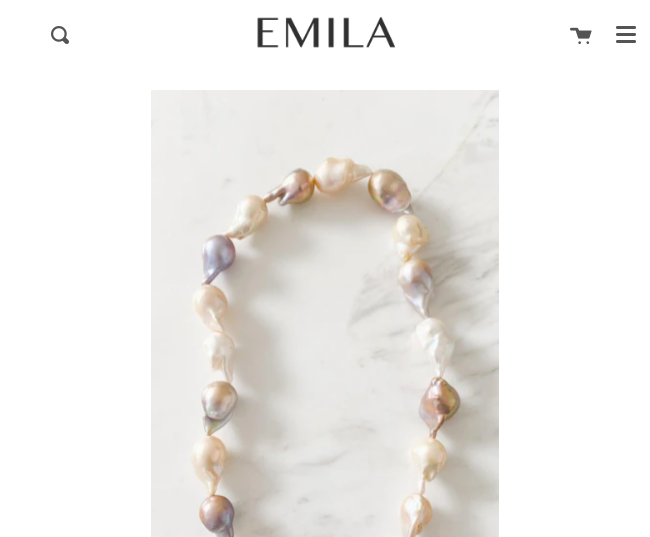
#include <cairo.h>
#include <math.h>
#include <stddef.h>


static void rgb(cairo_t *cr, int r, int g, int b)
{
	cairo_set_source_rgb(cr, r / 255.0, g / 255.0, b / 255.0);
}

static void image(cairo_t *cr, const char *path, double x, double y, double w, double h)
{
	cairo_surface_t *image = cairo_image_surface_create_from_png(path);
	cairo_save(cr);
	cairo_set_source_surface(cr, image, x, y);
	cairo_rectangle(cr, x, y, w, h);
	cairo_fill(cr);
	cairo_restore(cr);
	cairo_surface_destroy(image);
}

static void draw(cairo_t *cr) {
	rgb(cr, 255, 255, 255);
	cairo_paint(cr);
	image(cr, "image0.png", 257, 16, 139, 32);
	image(cr, "image1.png", 51, 26, 18, 18);
	image(cr, "image2.png", 570, 27, 22, 17);
	rgb(cr, 84, 84, 84);
	cairo_new_path(cr);
	cairo_move_to(cr, 617.5, 26);
	cairo_line_to(cr, 633, 26);
	cairo_line_to(cr, 633, 29);
	cairo_line_to(cr, 617.5, 29);
	cairo_curve_to(cr, 616.5, 29, 616, 28.5, 616, 27.5);
	cairo_curve_to(cr, 616, 26.5, 616.5, 26, 617.5, 26);
	cairo_close_path(cr);
	cairo_fill(cr);
	cairo_new_path(cr);
	cairo_move_to(cr, 619, 26);
	cairo_line_to(cr, 634.5, 26);
	cairo_curve_to(cr, 635.5, 26, 636, 26.5, 636, 27.5);
	cairo_curve_to(cr, 636, 28.5, 635.5, 29, 634.5, 29);
	cairo_line_to(cr, 619, 29);
	cairo_close_path(cr);
	cairo_fill(cr);
	cairo_new_path(cr);
	cairo_move_to(cr, 617.5, 33);
	cairo_line_to(cr, 633, 33);
	cairo_line_to(cr, 633, 36);
	cairo_line_to(cr, 617.5, 36);
	cairo_curve_to(cr, 616.5, 36, 616, 35.5, 616, 34.5);
	cairo_curve_to(cr, 616, 33.5, 616.5, 33, 617.5, 33);
	cairo_close_path(cr);
	cairo_fill(cr);
	cairo_new_path(cr);
	cairo_move_to(cr, 619, 33);
	cairo_line_to(cr, 634.5, 33);
	cairo_curve_to(cr, 635.5, 33, 636, 33.5, 636, 34.5);
	cairo_curve_to(cr, 636, 35.5, 635.5, 36, 634.5, 36);
	cairo_line_to(cr, 619, 36);
	cairo_close_path(cr);
	cairo_fill(cr);
	cairo_new_path(cr);
	cairo_move_to(cr, 617.5, 40);
	cairo_line_to(cr, 633, 40);
	cairo_line_to(cr, 633, 43);
	cairo_line_to(cr, 617.5, 43);
	cairo_curve_to(cr, 616.5, 43, 616, 42.5, 616, 41.5);
	cairo_curve_to(cr, 616, 40.5, 616.5, 40, 617.5, 40);
	cairo_close_path(cr);
	cairo_fill(cr);
	cairo_new_path(cr);
	cairo_move_to(cr, 619, 40);
	cairo_line_to(cr, 634.5, 40);
	cairo_curve_to(cr, 635.5, 40, 636, 40.5, 636, 41.5);
	cairo_curve_to(cr, 636, 42.5, 635.5, 43, 634.5, 43);
	cairo_line_to(cr, 619, 43);
	cairo_close_path(cr);
	cairo_fill(cr);
	image(cr, "image3.png", 151, 90, 348, 447);
}

int main(void) {
	cairo_surface_t *surface = cairo_image_surface_create(CAIRO_FORMAT_RGB24, 650, 537);
	cairo_t *cr = cairo_create(surface);
	cairo_font_options_t *options = cairo_font_options_create();
	cairo_font_options_set_hint_metrics(options, CAIRO_HINT_METRICS_OFF);
	cairo_font_options_set_hint_style(options, CAIRO_HINT_STYLE_NONE);
	cairo_set_font_options(cr, options);
	cairo_set_miter_limit(cr, 4);
	draw(cr);
	cairo_surface_write_to_png(surface, "render.png");
	cairo_font_options_destroy(options);
	cairo_destroy(cr);
	cairo_surface_destroy(surface);
	return 0;
}
